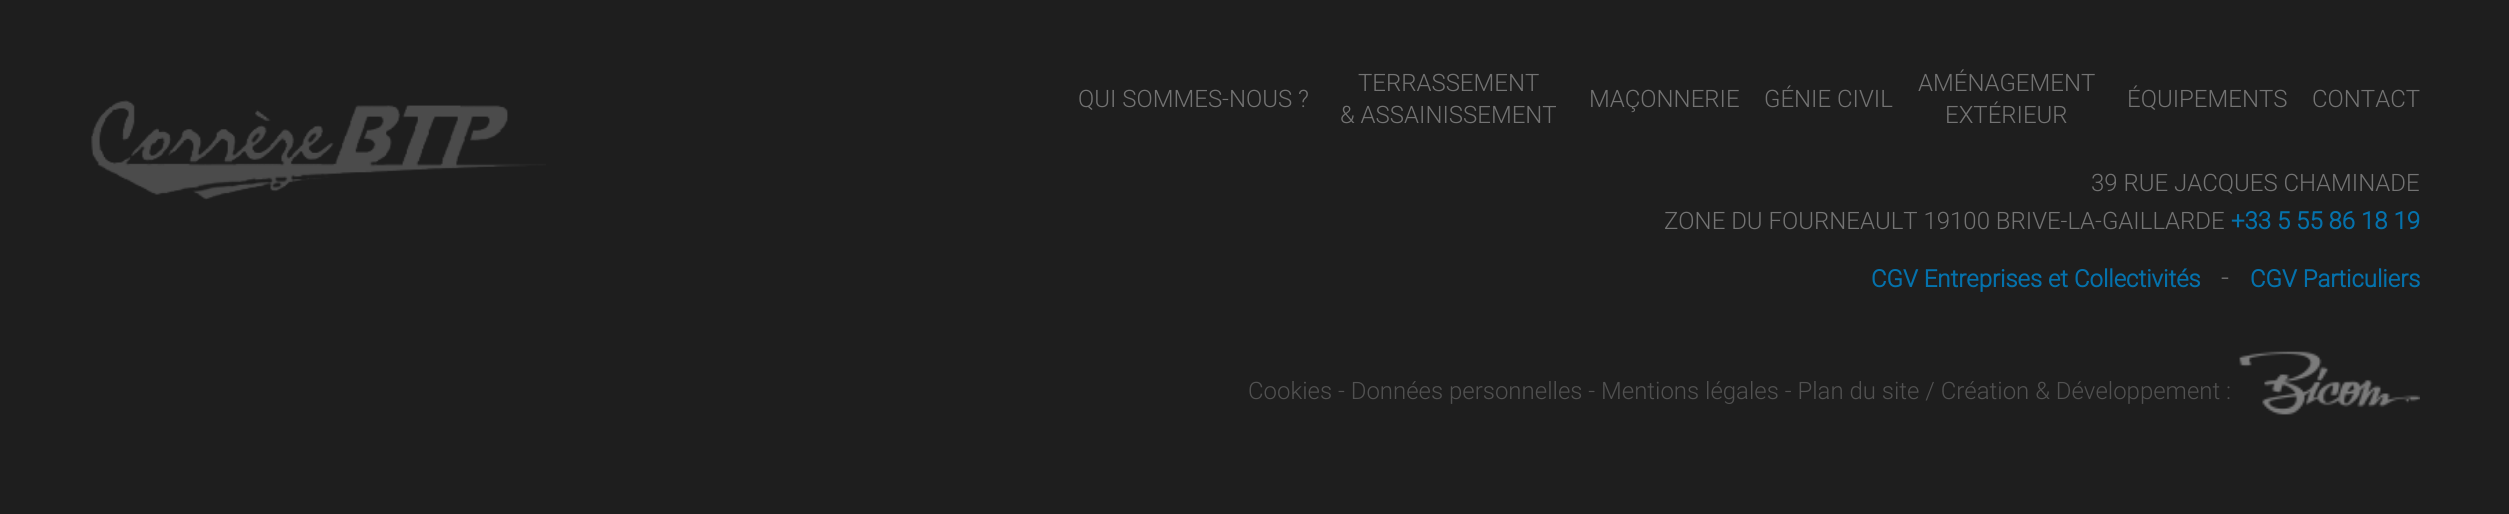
#include <cairo.h>
#include <math.h>
#include <stddef.h>


static void rgb(cairo_t *cr, int r, int g, int b)
{
	cairo_set_source_rgb(cr, r / 255.0, g / 255.0, b / 255.0);
}

static void face(cairo_t *cr, const char *family, double size, int italic, int bold)
{
	cairo_select_font_face(cr, family, italic ? CAIRO_FONT_SLANT_ITALIC : CAIRO_FONT_SLANT_NORMAL,
		bold ? CAIRO_FONT_WEIGHT_BOLD : CAIRO_FONT_WEIGHT_NORMAL);
	cairo_set_font_size(cr, size);
}

static void label(cairo_t *cr, double x, double y, const char *s)
{
	cairo_move_to(cr, x, y);
	cairo_show_text(cr, s);
}

static void image(cairo_t *cr, const char *path, double x, double y, double w, double h)
{
	cairo_surface_t *image = cairo_image_surface_create_from_png(path);
	cairo_save(cr);
	cairo_set_source_surface(cr, image, x, y);
	cairo_rectangle(cr, x, y, w, h);
	cairo_fill(cr);
	cairo_restore(cr);
	cairo_surface_destroy(image);
}

static void draw(cairo_t *cr) {
	rgb(cr, 30, 30, 30);
	cairo_paint(cr);
	image(cr, "image0.png", 91, 100, 455, 100);
	face(cr, "Roboto Light", 24, 0, 0);
	rgb(cr, 115, 115, 115);
	label(cr, 1078, 107, "QUI SOMMES-NOUS ?");
	label(cr, 1358, 91, "TERRASSEMENT");
	label(cr, 1340, 123, "& ASSAINISSEMENT");
	label(cr, 1589, 107, "MAÇONNERIE");
	label(cr, 1764, 107, "GÉNIE CIVIL");
	label(cr, 1918, 91, "AMÉNAGEMENT");
	label(cr, 1945, 123, "EXTÉRIEUR");
	label(cr, 2127, 107, "ÉQUIPEMENTS");
	label(cr, 2312, 107, "CONTACT");
	label(cr, 2091, 191, "39 RUE JACQUES CHAMINADE");
	label(cr, 1664, 229, "ZONE DU FOURNEAULT 19100 BRIVE-LA-GAILLARDE");
	face(cr, "Roboto", 24, 0, 1);
	rgb(cr, 4, 114, 173);
	label(cr, 2231, 229, "+33 5 55 86 18 19");
	label(cr, 1871, 287, "CGV Entreprises et Collectivités");
	face(cr, "Roboto Light", 28, 0, 0);
	rgb(cr, 115, 115, 115);
	label(cr, 2221, 287, "-");
	face(cr, "Roboto", 24, 0, 1);
	rgb(cr, 4, 114, 173);
	label(cr, 2250, 287, "CGV Particuliers");
	face(cr, "Roboto Light", 24, 0, 0);
	rgb(cr, 81, 81, 81);
	label(cr, 1248, 399, "Cookies - Données personnelles - Mentions légales - Plan du site / Création & Développement :");
	image(cr, "image1.png", 2239, 351, 181, 64);
}

int main(void) {
	cairo_surface_t *surface = cairo_image_surface_create(CAIRO_FORMAT_RGB24, 2509, 514);
	cairo_t *cr = cairo_create(surface);
	cairo_font_options_t *options = cairo_font_options_create();
	cairo_font_options_set_hint_metrics(options, CAIRO_HINT_METRICS_OFF);
	cairo_font_options_set_hint_style(options, CAIRO_HINT_STYLE_NONE);
	cairo_set_font_options(cr, options);
	cairo_set_miter_limit(cr, 4);
	draw(cr);
	cairo_surface_write_to_png(surface, "render.png");
	cairo_font_options_destroy(options);
	cairo_destroy(cr);
	cairo_surface_destroy(surface);
	return 0;
}
